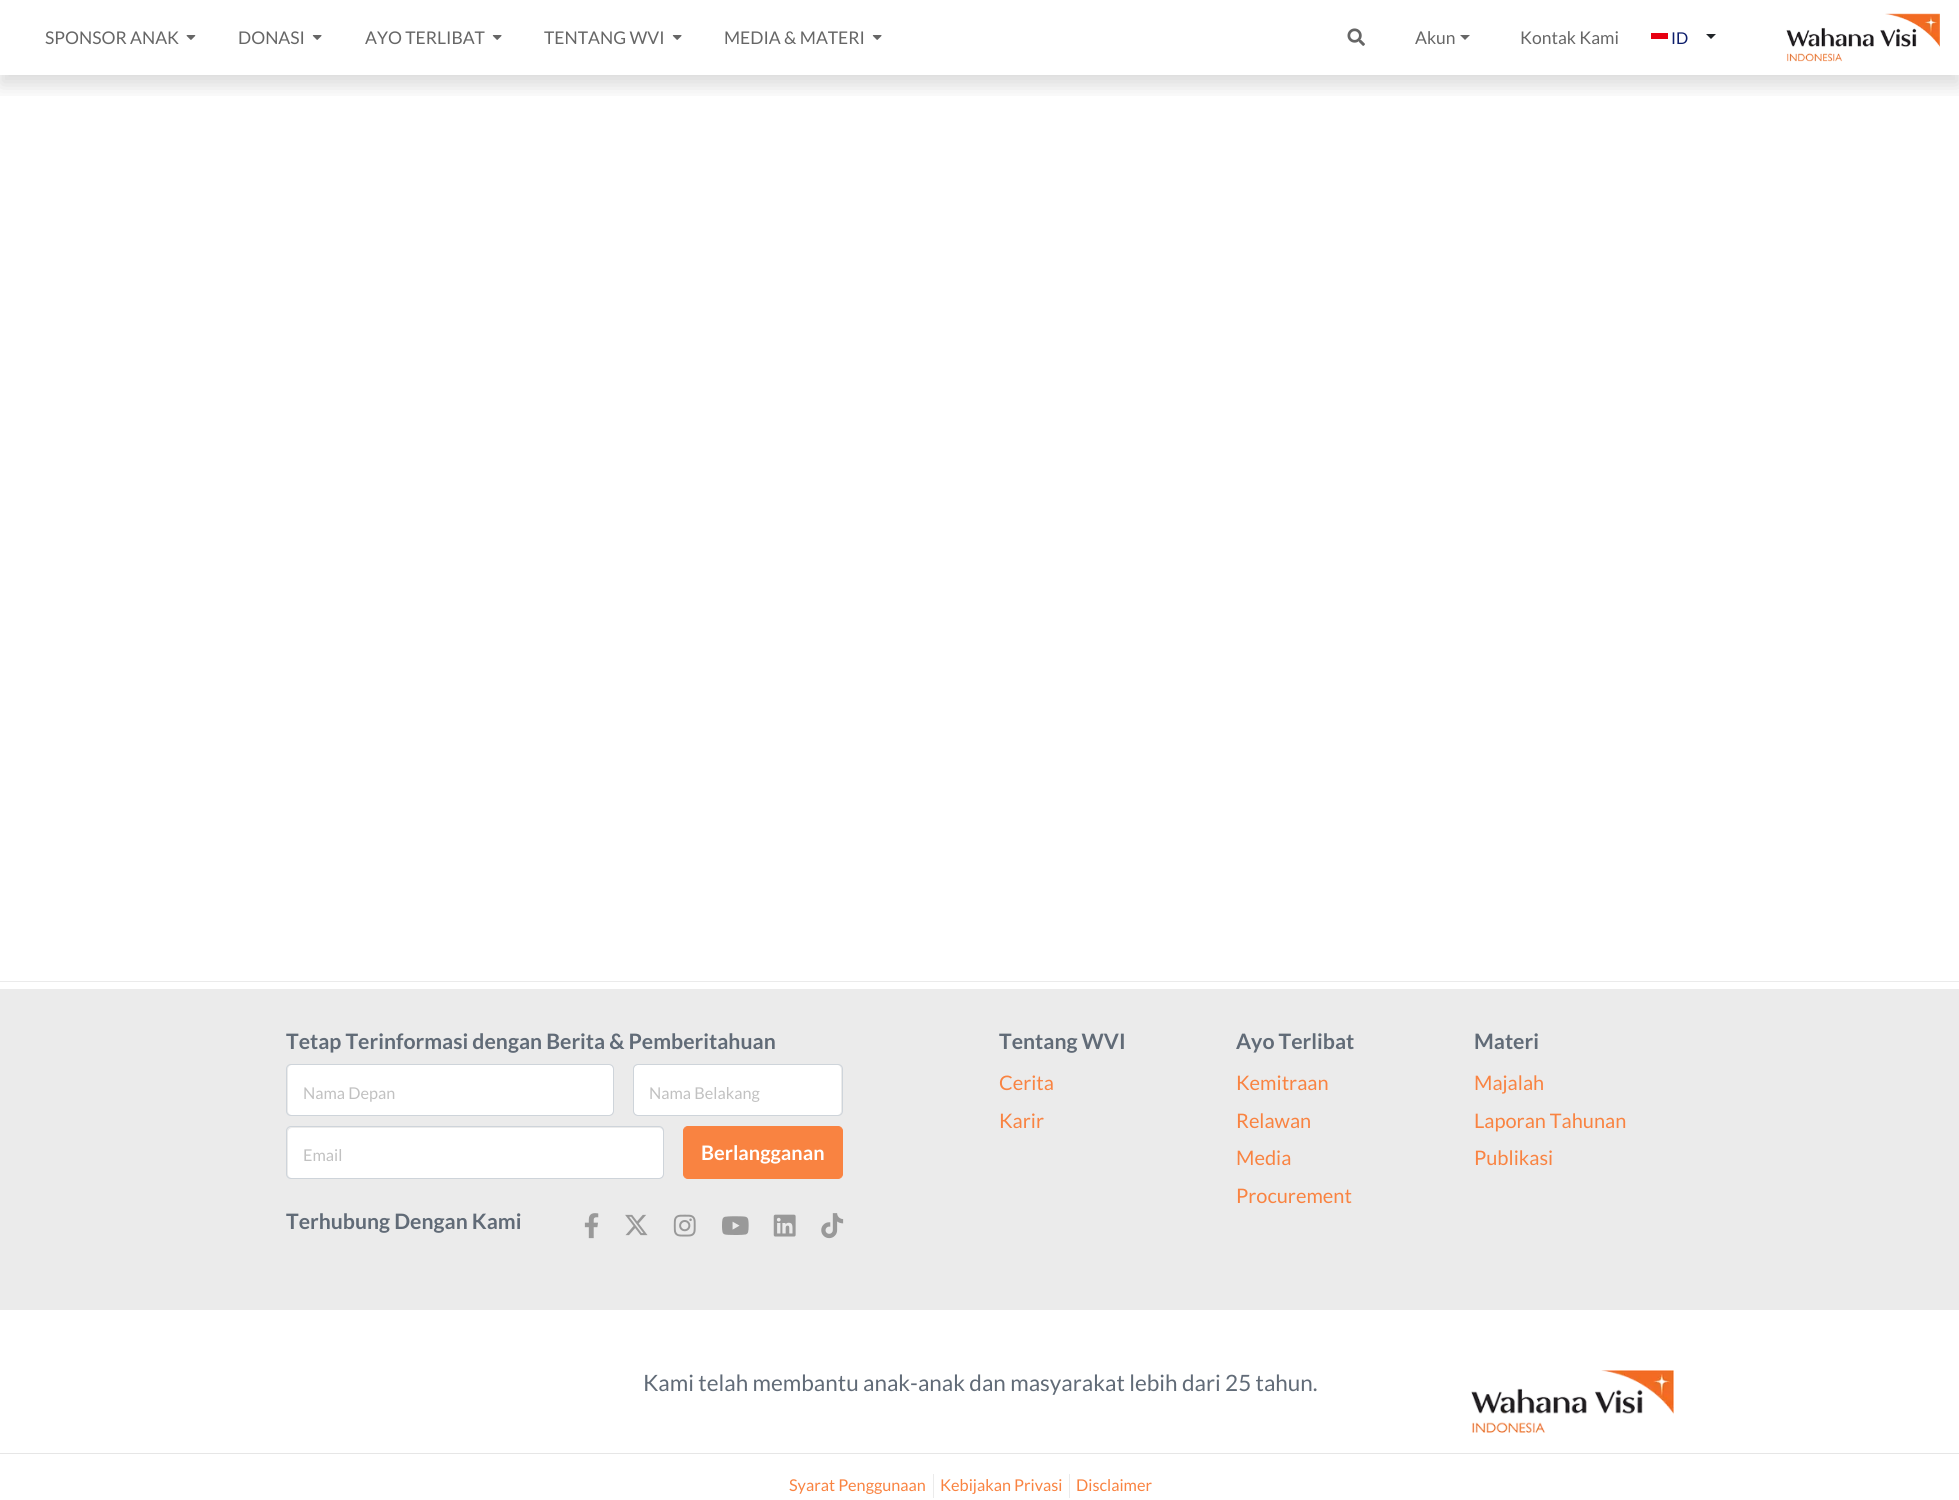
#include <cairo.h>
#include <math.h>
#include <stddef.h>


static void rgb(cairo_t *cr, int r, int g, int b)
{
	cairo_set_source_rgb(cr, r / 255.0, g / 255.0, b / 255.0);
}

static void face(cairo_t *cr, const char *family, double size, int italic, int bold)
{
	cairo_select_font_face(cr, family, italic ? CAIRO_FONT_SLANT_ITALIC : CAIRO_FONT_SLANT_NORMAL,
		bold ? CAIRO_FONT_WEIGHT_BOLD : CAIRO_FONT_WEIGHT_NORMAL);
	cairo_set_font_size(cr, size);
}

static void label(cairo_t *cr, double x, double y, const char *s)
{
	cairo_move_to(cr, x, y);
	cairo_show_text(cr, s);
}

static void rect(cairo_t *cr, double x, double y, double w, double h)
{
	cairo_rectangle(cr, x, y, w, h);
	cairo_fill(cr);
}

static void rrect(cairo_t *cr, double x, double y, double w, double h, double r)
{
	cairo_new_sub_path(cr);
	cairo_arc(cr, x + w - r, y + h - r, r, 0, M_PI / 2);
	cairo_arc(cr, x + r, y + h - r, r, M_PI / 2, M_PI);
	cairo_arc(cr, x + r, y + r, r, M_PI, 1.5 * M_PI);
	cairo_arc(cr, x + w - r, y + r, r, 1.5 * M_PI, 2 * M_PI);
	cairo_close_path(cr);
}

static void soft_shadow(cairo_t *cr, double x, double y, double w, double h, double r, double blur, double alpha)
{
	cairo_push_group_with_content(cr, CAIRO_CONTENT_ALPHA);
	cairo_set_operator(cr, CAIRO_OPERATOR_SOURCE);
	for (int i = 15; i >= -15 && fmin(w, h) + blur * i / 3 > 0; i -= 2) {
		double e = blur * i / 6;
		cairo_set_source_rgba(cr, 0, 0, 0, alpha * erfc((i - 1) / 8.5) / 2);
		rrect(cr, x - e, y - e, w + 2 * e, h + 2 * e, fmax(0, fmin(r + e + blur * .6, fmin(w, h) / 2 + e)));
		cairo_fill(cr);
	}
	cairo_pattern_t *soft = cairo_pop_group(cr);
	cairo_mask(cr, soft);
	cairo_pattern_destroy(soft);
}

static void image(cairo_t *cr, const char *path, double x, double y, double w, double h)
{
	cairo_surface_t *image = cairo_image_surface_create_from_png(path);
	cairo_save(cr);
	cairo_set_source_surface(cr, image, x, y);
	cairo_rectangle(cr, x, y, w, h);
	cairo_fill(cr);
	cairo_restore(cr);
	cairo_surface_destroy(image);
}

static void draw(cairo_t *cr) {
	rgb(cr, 255, 255, 255);
	cairo_paint(cr);
	cairo_save(cr);
	cairo_rectangle(cr, 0, 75, 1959, 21);
	cairo_clip(cr);
	rgb(cr, 0, 0, 0);
	soft_shadow(cr, 0, 10, 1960, 75, 0, 10, 0.15);
	cairo_restore(cr);
	face(cr, "Lato", 17.5, 0, 0);
	rgb(cr, 102, 102, 102);
	label(cr, 45, 44, "SPONSOR ANAK");
	image(cr, "image0.png", 186, 35, 10, 5);
	label(cr, 238, 44, "DONASI");
	image(cr, "image1.png", 312, 35, 10, 5);
	label(cr, 365, 44, "AYO TERLIBAT");
	image(cr, "image1.png", 492, 35, 10, 5);
	label(cr, 544, 44, "TENTANG WVI");
	image(cr, "image1.png", 672, 35, 10, 5);
	label(cr, 724, 44, "MEDIA & MATERI");
	image(cr, "image1.png", 872, 35, 10, 5);
	image(cr, "image2.png", 1347, 28, 18, 18);
	label(cr, 1415, 44, "Akun");
	cairo_new_path(cr);
	cairo_move_to(cr, 1460, 35);
	cairo_line_to(cr, 1470, 35);
	cairo_line_to(cr, 1465, 40);
	cairo_close_path(cr);
	cairo_fill(cr);
	label(cr, 1520, 44, "Kontak Kami");
	rgb(cr, 231, 0, 17);
	rect(cr, 1651, 33, 17, 6);
	face(cr, "Lato", 16.25, 0, 0);
	rgb(cr, 12, 29, 107);
	label(cr, 1671, 44, "ID");
	rgb(cr, 33, 37, 41);
	cairo_new_path(cr);
	cairo_move_to(cr, 1706, 34);
	cairo_line_to(cr, 1716, 34);
	cairo_line_to(cr, 1711, 39);
	cairo_close_path(cr);
	cairo_fill(cr);
	image(cr, "image3.png", 1786, 13, 154, 49);
	rgb(cr, 235, 235, 235);
	rect(cr, 0, 981, 1959, 1);
	rect(cr, 0, 989, 1959, 321);
	face(cr, "Lato", 21.25, 0, 1);
	rgb(cr, 97, 107, 119);
	label(cr, 286, 1049, "Tetap Terinformasi dengan Berita & Pemberitahuan");
	rgb(cr, 255, 255, 255);
	rrect(cr, 288, 1065, 325, 50, 4);
	cairo_fill(cr);
	rrect(cr, 286.5, 1064.5, 327, 51, 4.5);
	rgb(cr, 206, 212, 218);
	cairo_set_line_width(cr, 1);
	cairo_stroke(cr);
	face(cr, "Lato", 16.25, 0, 0);
	rgb(cr, 193, 193, 193);
	label(cr, 303, 1099, "Nama Depan");
	rgb(cr, 255, 255, 255);
	rrect(cr, 634, 1065, 207, 50, 4);
	cairo_fill(cr);
	rrect(cr, 633.5, 1064.5, 209, 51, 4.5);
	rgb(cr, 206, 212, 218);
	cairo_stroke(cr);
	rgb(cr, 193, 193, 193);
	label(cr, 649, 1099, "Nama Belakang");
	rgb(cr, 255, 255, 255);
	rrect(cr, 288, 1128, 375, 50, 4);
	cairo_fill(cr);
	rrect(cr, 286.5, 1126.5, 377, 52, 4.5);
	rgb(cr, 206, 212, 218);
	cairo_stroke(cr);
	rgb(cr, 193, 193, 193);
	label(cr, 303, 1161, "Email");
	rgb(cr, 249, 131, 65);
	rrect(cr, 683.5, 1126.5, 159, 52, 4.5);
	cairo_fill_preserve(cr);
	cairo_stroke(cr);
	face(cr, "Lato", 20, 0, 1);
	rgb(cr, 255, 255, 255);
	label(cr, 701, 1160, "Berlangganan");
	face(cr, "Lato", 21.25, 0, 1);
	rgb(cr, 97, 107, 119);
	label(cr, 286, 1229, "Terhubung Dengan Kami");
	image(cr, "image4.png", 584, 1213, 15, 26);
	image(cr, "image5.png", 625, 1214, 23, 22);
	image(cr, "image6.png", 673, 1214, 23, 23);
	image(cr, "image7.png", 722, 1216, 27, 19);
	image(cr, "image8.png", 773, 1214, 23, 23);
	image(cr, "image9.png", 821, 1213, 23, 26);
	label(cr, 999, 1049, "Tentang WVI");
	face(cr, "Lato", 20, 0, 0);
	rgb(cr, 249, 131, 65);
	label(cr, 999, 1090, "Cerita");
	label(cr, 999, 1128, "Karir");
	face(cr, "Lato", 21.25, 0, 1);
	rgb(cr, 97, 107, 119);
	label(cr, 1236, 1049, "Ayo Terlibat");
	face(cr, "Lato", 20, 0, 0);
	rgb(cr, 249, 131, 65);
	label(cr, 1236, 1090, "Kemitraan");
	label(cr, 1236, 1128, "Relawan");
	label(cr, 1236, 1165, "Media");
	label(cr, 1236, 1203, "Procurement");
	face(cr, "Lato", 21.25, 0, 1);
	rgb(cr, 97, 107, 119);
	label(cr, 1474, 1049, "Materi");
	face(cr, "Lato", 20, 0, 0);
	rgb(cr, 249, 131, 65);
	label(cr, 1474, 1090, "Majalah");
	label(cr, 1474, 1128, "Laporan Tahunan");
	label(cr, 1474, 1165, "Publikasi");
	face(cr, "Lato", 22.5, 0, 0);
	rgb(cr, 97, 107, 119);
	label(cr, 643, 1391, "Kami telah membantu anak-anak dan masyarakat lebih dari 25 tahun.");
	image(cr, "image10.png", 1471, 1370, 203, 63);
	rgb(cr, 230, 230, 230);
	rect(cr, 0, 1453, 1959, 1);
	rgb(cr, 235, 235, 235);
	rect(cr, 933, 1474, 1, 24);
	face(cr, "Lato", 16.25, 0, 0);
	rgb(cr, 249, 131, 65);
	label(cr, 789, 1491, "Syarat Penggunaan");
	rgb(cr, 235, 235, 235);
	rect(cr, 1069, 1474, 1, 24);
	rgb(cr, 249, 131, 65);
	label(cr, 940, 1491, "Kebijakan Privasi");
	label(cr, 1076, 1491, "Disclaimer");
}

int main(void) {
	cairo_surface_t *surface = cairo_image_surface_create(CAIRO_FORMAT_RGB24, 1959, 1500);
	cairo_t *cr = cairo_create(surface);
	cairo_font_options_t *options = cairo_font_options_create();
	cairo_font_options_set_hint_metrics(options, CAIRO_HINT_METRICS_OFF);
	cairo_font_options_set_hint_style(options, CAIRO_HINT_STYLE_NONE);
	cairo_set_font_options(cr, options);
	cairo_set_miter_limit(cr, 4);
	draw(cr);
	cairo_surface_write_to_png(surface, "render.png");
	cairo_font_options_destroy(options);
	cairo_destroy(cr);
	cairo_surface_destroy(surface);
	return 0;
}
